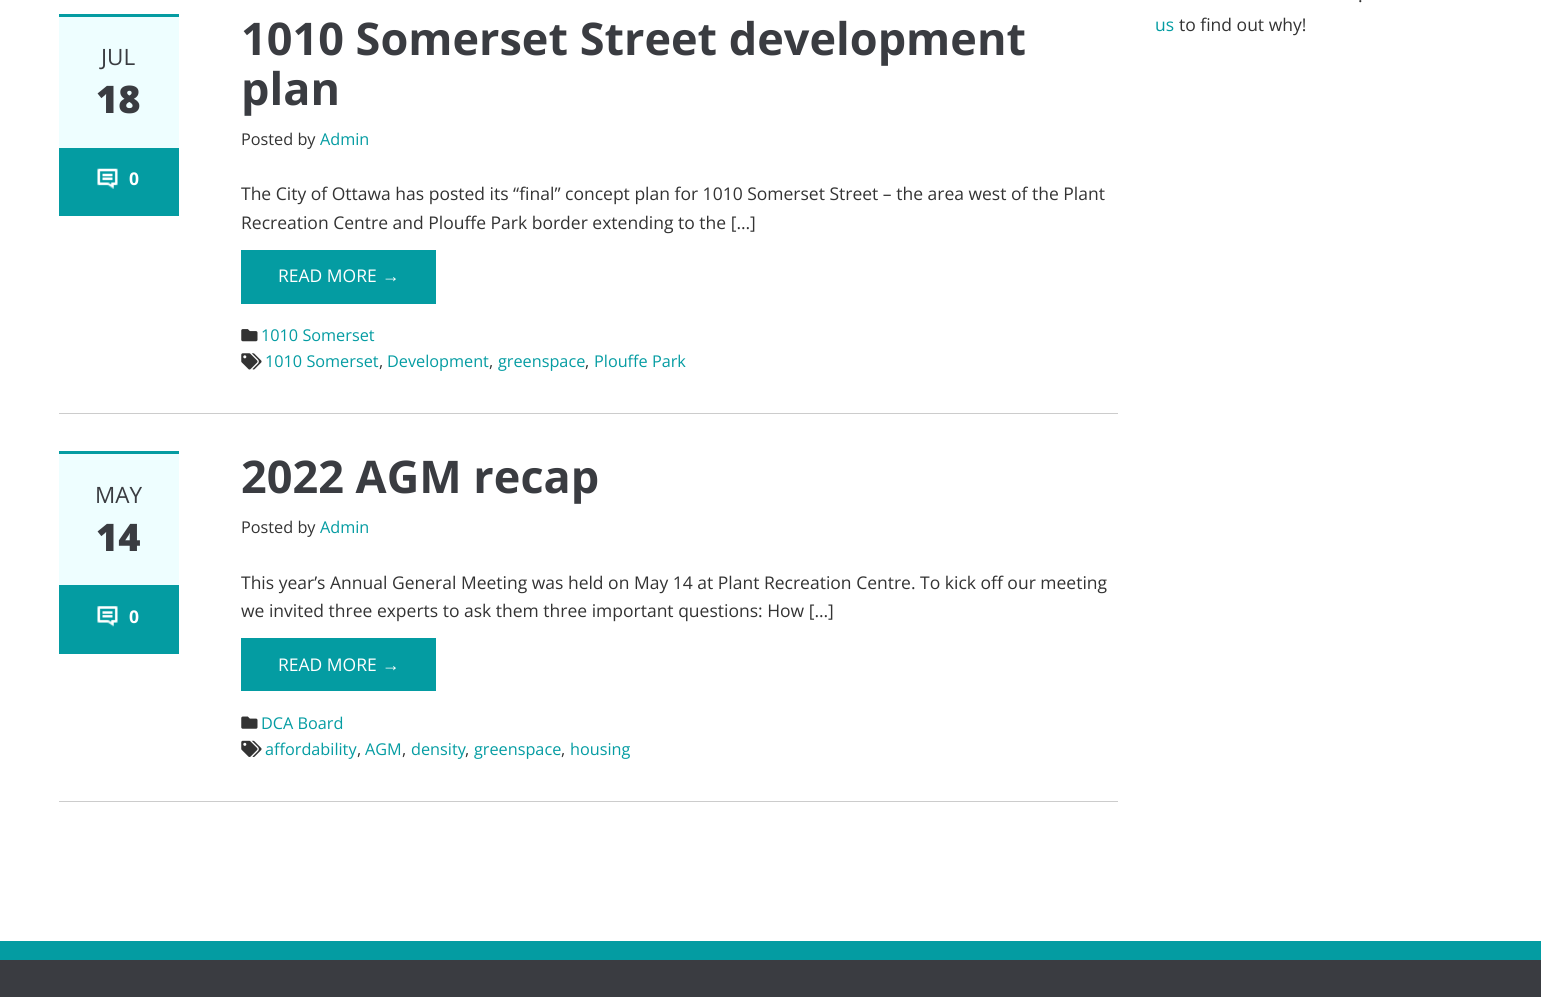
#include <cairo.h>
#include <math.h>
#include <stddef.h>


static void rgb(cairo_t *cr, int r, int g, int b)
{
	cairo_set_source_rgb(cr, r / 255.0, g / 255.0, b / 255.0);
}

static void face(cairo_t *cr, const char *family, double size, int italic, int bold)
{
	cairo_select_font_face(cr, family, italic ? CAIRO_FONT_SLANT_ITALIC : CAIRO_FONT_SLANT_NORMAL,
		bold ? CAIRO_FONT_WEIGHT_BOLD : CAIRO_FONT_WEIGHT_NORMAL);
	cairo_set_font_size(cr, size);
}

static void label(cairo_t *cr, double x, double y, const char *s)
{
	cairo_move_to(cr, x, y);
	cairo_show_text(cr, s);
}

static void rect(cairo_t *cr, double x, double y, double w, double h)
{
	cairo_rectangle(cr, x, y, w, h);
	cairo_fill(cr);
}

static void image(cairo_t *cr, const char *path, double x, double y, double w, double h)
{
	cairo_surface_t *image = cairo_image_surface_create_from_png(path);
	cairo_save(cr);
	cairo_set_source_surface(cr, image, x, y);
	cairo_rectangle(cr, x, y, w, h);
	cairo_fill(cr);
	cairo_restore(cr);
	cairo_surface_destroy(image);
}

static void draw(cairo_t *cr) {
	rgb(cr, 255, 255, 255);
	cairo_paint(cr);
	rgb(cr, 204, 204, 204);
	rect(cr, 59, 413, 1059, 1);
	rgb(cr, 238, 254, 255);
	rect(cr, 59, 17, 120, 131);
	rgb(cr, 4, 156, 162);
	rect(cr, 59, 14, 120, 3);
	face(cr, "Open Sans", 22.5, 0, 0);
	rgb(cr, 58, 60, 65);
	label(cr, 101, 65, "JUL");
	face(cr, "Open Sans ExtraBold", 38, 0, 0);
	label(cr, 96, 113, "18");
	rgb(cr, 4, 156, 162);
	rect(cr, 59, 148, 120, 68);
	image(cr, "image0.png", 97, 168, 21, 21);
	face(cr, "Open Sans", 17.5, 0, 1);
	rgb(cr, 255, 255, 255);
	label(cr, 129, 185, "0");
	face(cr, "Open Sans", 45, 0, 1);
	rgb(cr, 58, 60, 65);
	label(cr, 241, 55, "1010 Somerset Street development");
	label(cr, 241, 105, "plan");
	face(cr, "Open Sans", 16.25, 0, 0);
	rgb(cr, 51, 51, 51);
	label(cr, 241, 145, "Posted by");
	rgb(cr, 4, 156, 162);
	label(cr, 320, 145, "Admin");
	face(cr, "Open Sans", 17.5, 0, 0);
	rgb(cr, 51, 51, 51);
	label(cr, 241, 200, "The City of Ottawa has posted its “final” concept plan for 1010 Somerset Street – the area west of the Plant");
	label(cr, 241, 229, "Recreation Centre and Plouffe Park border extending to the […]");
	rgb(cr, 4, 156, 162);
	rect(cr, 241, 250, 195, 54);
	rgb(cr, 255, 255, 255);
	label(cr, 278, 282, "READ MORE");
	face(cr, "Liberation Sans", 17.5, 0, 0);
	label(cr, 382, 282, "→");
	image(cr, "image1.png", 241, 329, 17, 13);
	face(cr, "Open Sans", 16.25, 0, 0);
	rgb(cr, 4, 156, 162);
	label(cr, 261, 341, "1010 Somerset");
	image(cr, "image2.png", 241, 353, 21, 17);
	label(cr, 265, 367, "1010 Somerset");
	rgb(cr, 51, 51, 51);
	label(cr, 379, 367, ",");
	rgb(cr, 4, 156, 162);
	label(cr, 387, 367, "Development");
	rgb(cr, 51, 51, 51);
	label(cr, 489, 367, ",");
	rgb(cr, 4, 156, 162);
	label(cr, 498, 367, "greenspace");
	rgb(cr, 51, 51, 51);
	label(cr, 585, 367, ",");
	rgb(cr, 4, 156, 162);
	label(cr, 594, 367, "Plouffe Park");
	rgb(cr, 204, 204, 204);
	rect(cr, 59, 801, 1059, 1);
	rgb(cr, 238, 254, 255);
	rect(cr, 59, 454, 120, 131);
	rgb(cr, 4, 156, 162);
	rect(cr, 59, 451, 120, 3);
	face(cr, "Open Sans", 22.5, 0, 0);
	rgb(cr, 58, 60, 65);
	label(cr, 95, 503, "MAY");
	face(cr, "Open Sans ExtraBold", 38, 0, 0);
	label(cr, 96, 551, "14");
	rgb(cr, 4, 156, 162);
	rect(cr, 59, 585, 120, 69);
	image(cr, "image3.png", 97, 606, 21, 21);
	face(cr, "Open Sans", 17.5, 0, 1);
	rgb(cr, 255, 255, 255);
	label(cr, 129, 623, "0");
	face(cr, "Open Sans", 45, 0, 1);
	rgb(cr, 58, 60, 65);
	label(cr, 241, 493, "2022 AGM recap");
	face(cr, "Open Sans", 16.25, 0, 0);
	rgb(cr, 51, 51, 51);
	label(cr, 241, 533, "Posted by");
	rgb(cr, 4, 156, 162);
	label(cr, 320, 533, "Admin");
	face(cr, "Open Sans", 17.5, 0, 0);
	rgb(cr, 51, 51, 51);
	label(cr, 241, 589, "This year’s Annual General Meeting was held on May 14 at Plant Recreation Centre. To kick off our meeting");
	label(cr, 241, 617, "we invited three experts to ask them three important questions: How […]");
	rgb(cr, 4, 156, 162);
	rect(cr, 241, 638, 195, 53);
	rgb(cr, 255, 255, 255);
	label(cr, 278, 671, "READ MORE");
	face(cr, "Liberation Sans", 17.5, 0, 0);
	label(cr, 382, 671, "→");
	image(cr, "image4.png", 241, 716, 17, 13);
	face(cr, "Open Sans", 16.25, 0, 0);
	rgb(cr, 4, 156, 162);
	label(cr, 261, 729, "DCA Board");
	image(cr, "image5.png", 241, 740, 21, 17);
	label(cr, 265, 755, "affordability");
	rgb(cr, 51, 51, 51);
	label(cr, 357, 755, ",");
	rgb(cr, 4, 156, 162);
	label(cr, 365, 755, "AGM");
	rgb(cr, 51, 51, 51);
	label(cr, 402, 755, ",");
	rgb(cr, 4, 156, 162);
	label(cr, 411, 755, "density");
	rgb(cr, 51, 51, 51);
	label(cr, 465, 755, ",");
	rgb(cr, 4, 156, 162);
	label(cr, 474, 755, "greenspace");
	rgb(cr, 51, 51, 51);
	label(cr, 561, 755, ",");
	rgb(cr, 4, 156, 162);
	label(cr, 570, 755, "housing");
	face(cr, "Open Sans", 17.5, 0, 0);
	rgb(cr, 51, 51, 51);
	label(cr, 1358, 2, ".");
	rgb(cr, 4, 156, 162);
	label(cr, 1155, 31, "us");
	rgb(cr, 51, 51, 51);
	label(cr, 1179, 31, "to find out why!");
	rgb(cr, 58, 60, 65);
	rect(cr, 0, 960, 1541, 37);
	rgb(cr, 4, 156, 162);
	rect(cr, 0, 941, 1541, 19);
}

int main(void) {
	cairo_surface_t *surface = cairo_image_surface_create(CAIRO_FORMAT_RGB24, 1541, 997);
	cairo_t *cr = cairo_create(surface);
	cairo_font_options_t *options = cairo_font_options_create();
	cairo_font_options_set_hint_metrics(options, CAIRO_HINT_METRICS_OFF);
	cairo_font_options_set_hint_style(options, CAIRO_HINT_STYLE_NONE);
	cairo_set_font_options(cr, options);
	cairo_set_miter_limit(cr, 4);
	draw(cr);
	cairo_surface_write_to_png(surface, "render.png");
	cairo_font_options_destroy(options);
	cairo_destroy(cr);
	cairo_surface_destroy(surface);
	return 0;
}
